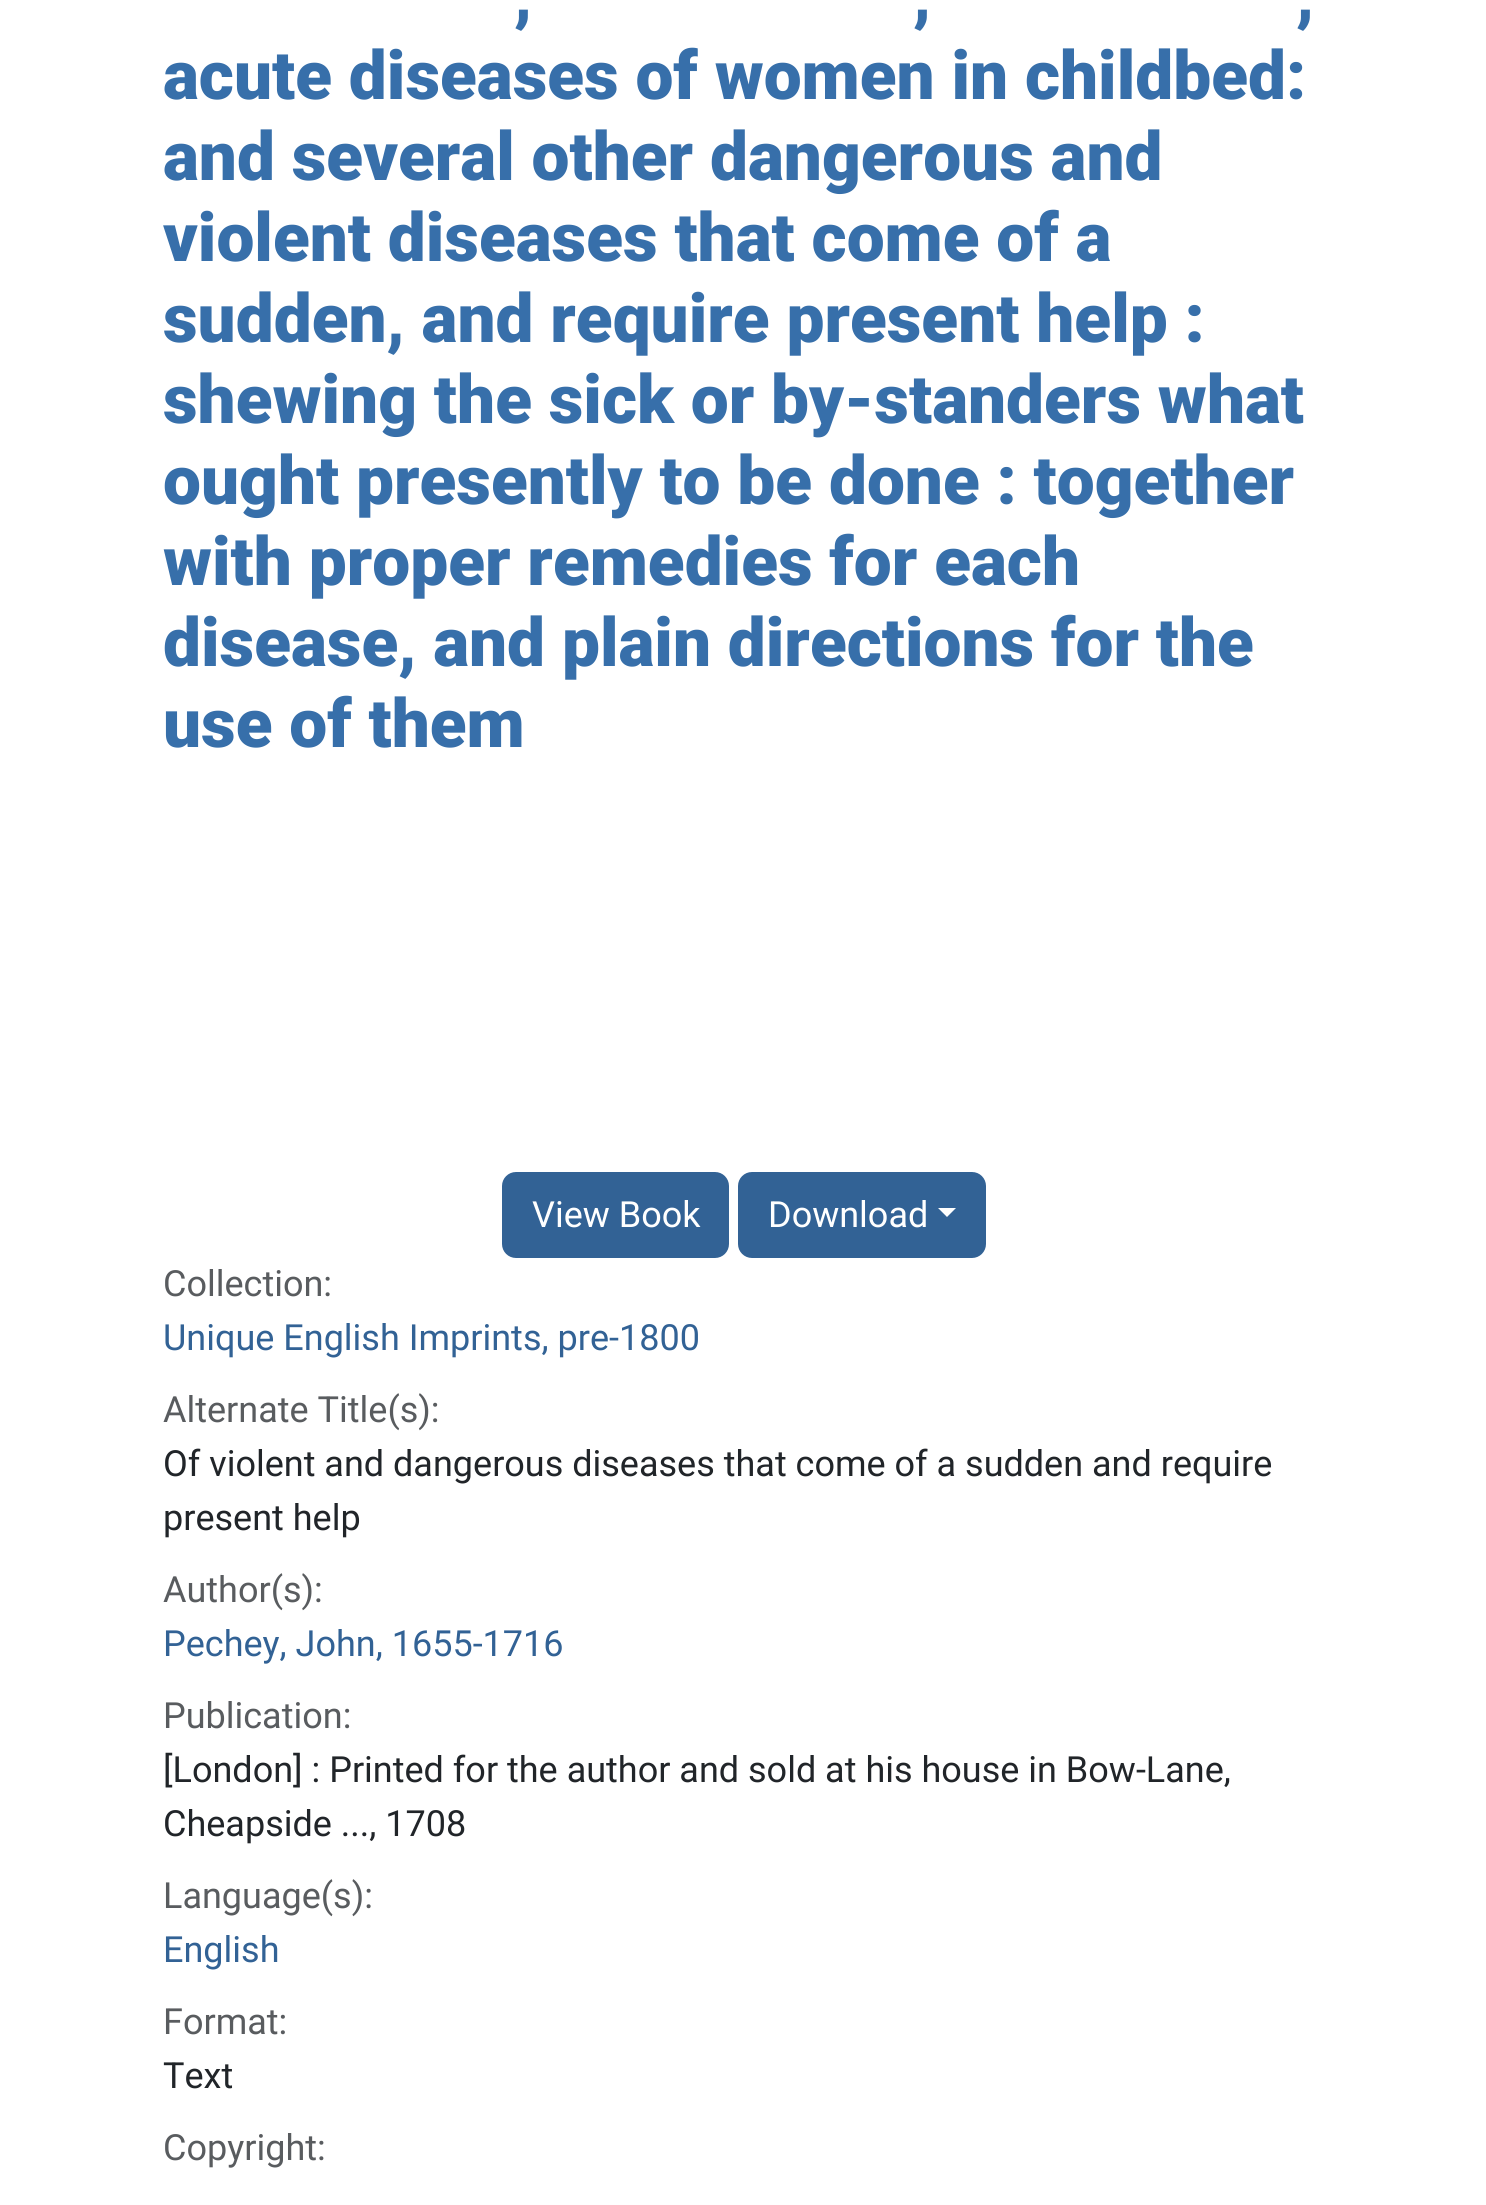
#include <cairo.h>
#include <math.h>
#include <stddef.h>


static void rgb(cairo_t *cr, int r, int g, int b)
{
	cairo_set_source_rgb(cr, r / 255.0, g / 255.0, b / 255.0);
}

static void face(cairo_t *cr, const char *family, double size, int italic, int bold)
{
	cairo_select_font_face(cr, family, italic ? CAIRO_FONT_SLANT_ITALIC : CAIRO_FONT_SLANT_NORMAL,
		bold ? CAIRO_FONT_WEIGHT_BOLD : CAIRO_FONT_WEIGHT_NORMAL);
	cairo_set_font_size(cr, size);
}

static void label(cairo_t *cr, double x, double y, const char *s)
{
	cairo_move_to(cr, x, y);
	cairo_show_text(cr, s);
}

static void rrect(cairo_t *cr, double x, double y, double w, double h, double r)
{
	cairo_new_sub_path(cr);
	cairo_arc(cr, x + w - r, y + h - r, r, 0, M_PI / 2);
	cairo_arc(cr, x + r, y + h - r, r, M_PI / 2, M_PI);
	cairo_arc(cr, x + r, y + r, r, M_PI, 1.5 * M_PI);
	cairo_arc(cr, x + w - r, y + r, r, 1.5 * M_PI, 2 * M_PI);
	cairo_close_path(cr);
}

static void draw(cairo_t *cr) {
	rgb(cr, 255, 255, 255);
	cairo_paint(cr);
	face(cr, "Roboto Black", 67.5, 0, 0);
	rgb(cr, 55, 111, 170);
	label(cr, 514, 18, ",");
	label(cr, 913, 18, ",");
	label(cr, 1296, 18, ",");
	label(cr, 163, 99, "acute diseases of women in childbed:");
	label(cr, 163, 180, "and several other dangerous and");
	label(cr, 163, 261, "violent diseases that come of a");
	label(cr, 163, 342, "sudden, and require present help :");
	label(cr, 163, 423, "shewing the sick or by-standers what");
	label(cr, 163, 504, "ought presently to be done : together");
	label(cr, 163, 585, "with proper remedies for each");
	label(cr, 163, 666, "disease, and plain directions for the");
	label(cr, 163, 747, "use of them");
	rgb(cr, 50, 98, 149);
	rrect(cr, 503, 1173, 225, 84, 13);
	cairo_fill_preserve(cr);
	cairo_stroke(cr);
	face(cr, "Roboto", 36, 0, 0);
	rgb(cr, 255, 255, 255);
	label(cr, 532, 1227, "View Book");
	rgb(cr, 50, 98, 149);
	rrect(cr, 739, 1173, 246, 84, 13);
	cairo_fill_preserve(cr);
	cairo_stroke(cr);
	rgb(cr, 255, 255, 255);
	label(cr, 768, 1227, "Download");
	cairo_new_path(cr);
	cairo_move_to(cr, 938, 1208);
	cairo_line_to(cr, 956, 1208);
	cairo_line_to(cr, 947, 1217);
	cairo_close_path(cr);
	cairo_fill(cr);
	rgb(cr, 89, 92, 95);
	label(cr, 163, 1296, "Collection:");
	rgb(cr, 50, 98, 149);
	label(cr, 163, 1350, "Unique English Imprints, pre-1800");
	rgb(cr, 89, 92, 95);
	label(cr, 163, 1422, "Alternate Title(s):");
	rgb(cr, 33, 37, 41);
	label(cr, 163, 1476, "Of violent and dangerous diseases that come of a sudden and require");
	label(cr, 163, 1530, "present help");
	rgb(cr, 89, 92, 95);
	label(cr, 163, 1602, "Author(s):");
	rgb(cr, 50, 98, 149);
	label(cr, 163, 1656, "Pechey, John, 1655-1716");
	rgb(cr, 89, 92, 95);
	label(cr, 163, 1728, "Publication:");
	rgb(cr, 33, 37, 41);
	label(cr, 163, 1782, "[London] : Printed for the author and sold at his house in Bow-Lane,");
	label(cr, 163, 1836, "Cheapside ..., 1708");
	rgb(cr, 89, 92, 95);
	label(cr, 163, 1908, "Language(s):");
	rgb(cr, 50, 98, 149);
	label(cr, 163, 1962, "English");
	rgb(cr, 89, 92, 95);
	label(cr, 163, 2034, "Format:");
	rgb(cr, 33, 37, 41);
	label(cr, 163, 2088, "Text");
	rgb(cr, 89, 92, 95);
	label(cr, 163, 2160, "Copyright:");
}

int main(void) {
	cairo_surface_t *surface = cairo_image_surface_create(CAIRO_FORMAT_RGB24, 1486, 2205);
	cairo_t *cr = cairo_create(surface);
	cairo_font_options_t *options = cairo_font_options_create();
	cairo_font_options_set_hint_metrics(options, CAIRO_HINT_METRICS_OFF);
	cairo_font_options_set_hint_style(options, CAIRO_HINT_STYLE_NONE);
	cairo_set_font_options(cr, options);
	cairo_set_miter_limit(cr, 4);
	draw(cr);
	cairo_surface_write_to_png(surface, "render.png");
	cairo_font_options_destroy(options);
	cairo_destroy(cr);
	cairo_surface_destroy(surface);
	return 0;
}
